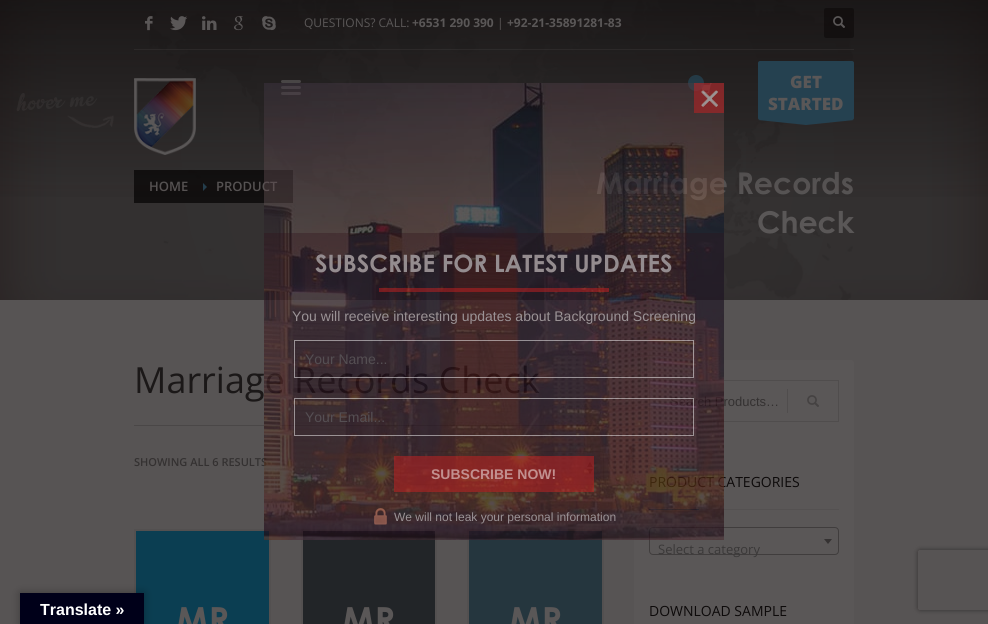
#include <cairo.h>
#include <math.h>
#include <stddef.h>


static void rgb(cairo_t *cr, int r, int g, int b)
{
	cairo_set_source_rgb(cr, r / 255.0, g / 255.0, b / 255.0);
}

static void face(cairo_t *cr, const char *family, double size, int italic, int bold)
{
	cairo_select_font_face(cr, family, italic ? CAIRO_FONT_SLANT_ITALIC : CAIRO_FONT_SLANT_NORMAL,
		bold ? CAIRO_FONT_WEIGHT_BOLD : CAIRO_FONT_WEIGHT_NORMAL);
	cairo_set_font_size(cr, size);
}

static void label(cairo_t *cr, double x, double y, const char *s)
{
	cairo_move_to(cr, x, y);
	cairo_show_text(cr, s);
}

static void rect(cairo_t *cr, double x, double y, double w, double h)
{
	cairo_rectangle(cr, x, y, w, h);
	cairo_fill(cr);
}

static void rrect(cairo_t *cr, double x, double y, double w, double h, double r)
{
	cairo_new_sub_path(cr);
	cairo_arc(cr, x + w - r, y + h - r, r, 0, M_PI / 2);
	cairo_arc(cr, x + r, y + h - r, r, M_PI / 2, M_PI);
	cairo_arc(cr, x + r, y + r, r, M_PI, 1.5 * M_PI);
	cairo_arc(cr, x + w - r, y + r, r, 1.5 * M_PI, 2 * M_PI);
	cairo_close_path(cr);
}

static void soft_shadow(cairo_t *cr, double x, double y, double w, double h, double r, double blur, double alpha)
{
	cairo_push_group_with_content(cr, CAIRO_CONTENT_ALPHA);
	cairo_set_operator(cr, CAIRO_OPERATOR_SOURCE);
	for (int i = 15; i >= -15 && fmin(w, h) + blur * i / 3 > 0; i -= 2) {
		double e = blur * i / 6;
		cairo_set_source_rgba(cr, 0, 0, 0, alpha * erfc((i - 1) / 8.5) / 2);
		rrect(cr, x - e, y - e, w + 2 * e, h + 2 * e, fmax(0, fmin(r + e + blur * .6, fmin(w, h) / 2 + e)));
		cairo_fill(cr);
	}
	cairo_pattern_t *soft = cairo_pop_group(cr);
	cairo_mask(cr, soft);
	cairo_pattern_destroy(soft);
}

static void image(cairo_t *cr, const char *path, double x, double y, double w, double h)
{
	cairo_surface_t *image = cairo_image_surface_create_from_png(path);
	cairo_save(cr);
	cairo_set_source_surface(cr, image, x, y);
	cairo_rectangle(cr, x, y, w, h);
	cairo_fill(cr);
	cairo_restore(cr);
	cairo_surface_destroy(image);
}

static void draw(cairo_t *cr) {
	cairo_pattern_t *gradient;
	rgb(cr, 87, 84, 84);
	cairo_paint(cr);
	image(cr, "image9.png", 0, 0, 988, 300);
	cairo_set_source_rgba(cr, 0.043, 0.031, 0.031, 0.8);
	rect(cr, 134, 170, 59, 33);
	face(cr, "Open Sans SemiBold", 13, 0, 0);
	rgb(cr, 90, 87, 87);
	label(cr, 149, 191, "HOME");
	cairo_set_source_rgba(cr, 0.043, 0.031, 0.031, 0.8);
	rect(cr, 193, 170, 100, 33);
	rgb(cr, 37, 65, 80);
	cairo_new_path(cr);
	cairo_move_to(cr, 203, 191);
	cairo_line_to(cr, 203, 183);
	cairo_line_to(cr, 207, 187);
	cairo_close_path(cr);
	cairo_fill(cr);
	rgb(cr, 90, 87, 87);
	label(cr, 216, 191, "PRODUCT");
	face(cr, "Century Gothic", 30, 0, 1);
	label(cr, 596, 194, "Marriage Records");
	gradient = cairo_pattern_create_linear(494, 0, 494, 207);
	cairo_pattern_add_color_stop_rgba(gradient, 0, 0.043, 0.031, 0.031, 0.6);
	cairo_pattern_add_color_stop_rgba(gradient, 1, 0.043, 0.031, 0.031, 0);
	cairo_set_source(cr, gradient);
	cairo_pattern_destroy(gradient);
	rect(cr, 0, 0, 988, 197);
	image(cr, "image0.png", 145, 16, 8, 15);
	image(cr, "image1.png", 170, 16, 18, 15);
	image(cr, "image2.png", 202, 16, 15, 14);
	image(cr, "image3.png", 234, 16, 9, 15);
	image(cr, "image4.png", 262, 16, 14, 15);
	face(cr, "Open Sans", 12, 0, 0);
	rgb(cr, 90, 87, 87);
	label(cr, 304, 27, "QUESTIONS? CALL:");
	face(cr, "Open Sans", 12, 0, 1);
	label(cr, 412, 27, "+6531 290 390");
	face(cr, "Open Sans", 12, 0, 0);
	label(cr, 497, 27, "|");
	face(cr, "Open Sans", 12, 0, 1);
	label(cr, 507, 27, "+92-21-35891281-83");
	cairo_set_source_rgba(cr, 0.043, 0.031, 0.031, 0.5);
	rrect(cr, 824, 8, 30, 30, 2);
	cairo_fill(cr);
	image(cr, "image5.png", 833, 16, 12, 12);
	cairo_set_source_rgba(cr, 0.353, 0.341, 0.341, 0.2);
	rect(cr, 134, 49, 720, 1);
	image(cr, "image6.png", 16, 93, 98, 35);
	image(cr, "image7.png", 134, 78, 62, 77);
	rgb(cr, 73, 70, 70);
	rrect(cr, 281, 80, 20, 3, 1.5);
	cairo_fill(cr);
	rrect(cr, 281, 86, 20, 3, 1.5);
	cairo_fill(cr);
	rrect(cr, 281, 92, 20, 3, 1.5);
	cairo_fill(cr);
	image(cr, "image8.png", 701, 83, 11, 11);
	cairo_set_source_rgba(cr, 0.145, 0.255, 0.314, 0.8);
	cairo_arc(cr, 696, 83, 8, 0, 2 * M_PI);
	cairo_fill(cr);
	rgb(cr, 37, 65, 80);
	rrect(cr, 758, 61, 96, 59, 2);
	cairo_fill(cr);
	face(cr, "Open Sans ExtraBold", 17, 0, 0);
	rgb(cr, 90, 87, 87);
	label(cr, 790, 88, "GET");
	label(cr, 768, 110, "STARTED");
	rgb(cr, 37, 65, 80);
	cairo_set_fill_rule(cr, CAIRO_FILL_RULE_EVEN_ODD);
	cairo_new_path(cr);
	cairo_move_to(cr, 854, 120);
	cairo_line_to(cr, 806, 125);
	cairo_line_to(cr, 758, 120);
	cairo_close_path(cr);
	cairo_fill(cr);
	face(cr, "Century Gothic", 30, 0, 1);
	rgb(cr, 90, 87, 87);
	label(cr, 757, 233, "Check");
	rgb(cr, 74, 71, 71);
	rect(cr, 134, 425, 470, 1);
	face(cr, "Open Sans", 36, 0, 0);
	rgb(cr, 27, 24, 24);
	label(cr, 134, 393, "Marriage Records Check");
	face(cr, "Open Sans SemiBold", 11, 0, 0);
	rgb(cr, 52, 49, 49);
	label(cr, 134, 466, "SHOWING ALL 6 RESULTS");
	image(cr, "image10.png", 587, 462, 6, 12);
	rrect(cr, 400.5, 451.5, 203, 33, 2.5);
	rgb(cr, 78, 76, 76);
	cairo_set_line_width(cr, 1);
	cairo_stroke(cr);
	rgb(cr, 11, 62, 82);
	rect(cr, 136, 531, 133, 93);
	cairo_rectangle(cr, 135, 530, 135, 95);
	rgb(cr, 83, 80, 80);
	cairo_set_line_width(cr, 2);
	cairo_stroke(cr);
	face(cr, "Century Gothic", 36, 0, 1);
	rgb(cr, 90, 87, 87);
	label(cr, 176, 633, "MR");
	rgb(cr, 34, 37, 40);
	rect(cr, 303, 531, 132, 93);
	cairo_rectangle(cr, 302, 530, 134, 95);
	rgb(cr, 83, 80, 80);
	cairo_stroke(cr);
	rgb(cr, 90, 87, 87);
	label(cr, 342, 633, "MR");
	rgb(cr, 37, 54, 62);
	rect(cr, 469, 531, 133, 93);
	cairo_rectangle(cr, 468, 530, 135, 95);
	rgb(cr, 83, 80, 80);
	cairo_stroke(cr);
	rgb(cr, 90, 87, 87);
	label(cr, 509, 633, "MR");
	rrect(cr, 634, 360, 220, 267, 3);
	cairo_fill(cr);
	cairo_rectangle(cr, 649.5, 380.5, 189, 41);
	rgb(cr, 80, 77, 77);
	cairo_set_line_width(cr, 1);
	cairo_stroke(cr);
	face(cr, "Liberation Sans", 13, 0, 0);
	rgb(cr, 52, 49, 49);
	label(cr, 670, 406, "Search Products…");
	rgb(cr, 80, 77, 77);
	rect(cr, 787, 389, 1, 24);
	image(cr, "image11.png", 807, 395, 12, 12);
	face(cr, "Open Sans", 14, 0, 0);
	rgb(cr, 13, 10, 10);
	label(cr, 649, 487, "PRODUCT CATEGORIES");
	rgb(cr, 37, 65, 80);
	rect(cr, 649, 509, 50, 1);
	rgb(cr, 84, 81, 81);
	rect(cr, 699, 509, 140, 1);
	rrect(cr, 649.5, 527.5, 189, 27, 3.5);
	rgb(cr, 64, 61, 61);
	cairo_stroke(cr);
	rgb(cr, 53, 50, 50);
	cairo_set_fill_rule(cr, CAIRO_FILL_RULE_WINDING);
	cairo_new_path(cr);
	cairo_move_to(cr, 824, 539);
	cairo_line_to(cr, 832, 539);
	cairo_line_to(cr, 828, 544);
	cairo_close_path(cr);
	cairo_fill(cr);
	face(cr, "Open Sans", 13, 0, 0);
	rgb(cr, 58, 56, 56);
	label(cr, 658, 554, "Select a category");
	face(cr, "Open Sans", 14, 0, 0);
	rgb(cr, 13, 10, 10);
	label(cr, 649, 616, "DOWNLOAD SAMPLE");
	image(cr, "image12.png", 264, 83, 460, 457);
	image(cr, "image13.png", 694, 83, 30, 30);
	cairo_set_source_rgba(cr, 0.188, 0.078, 0.11, 0.34);
	rect(cr, 264, 233, 460, 307);
	face(cr, "Century Gothic", 24, 0, 1);
	rgb(cr, 148, 140, 143);
	label(cr, 315, 272, "SUBSCRIBE FOR LATEST UPDATES");
	cairo_set_source_rgba(cr, 0.804, 0.129, 0.129, 0.49);
	rect(cr, 379, 288, 230, 4);
	face(cr, "Liberation Sans", 14, 0, 0);
	rgb(cr, 155, 147, 150);
	label(cr, 292, 321, "You will receive interesting updates about Background Screening");
	cairo_rectangle(cr, 294.5, 340.5, 399, 37);
	cairo_set_source_rgba(cr, 1, 1, 1, 0.49);
	cairo_stroke(cr);
	rgb(cr, 85, 79, 83);
	label(cr, 305, 364, "Your Name...");
	cairo_rectangle(cr, 294.5, 398.5, 399, 37);
	cairo_set_source_rgba(cr, 1, 1, 1, 0.49);
	cairo_stroke(cr);
	rgb(cr, 85, 79, 83);
	label(cr, 305, 422, "Your Email...");
	cairo_set_source_rgba(cr, 0.804, 0.129, 0.129, 0.49);
	rect(cr, 394, 456, 200, 36);
	face(cr, "Liberation Sans", 14, 0, 1);
	rgb(cr, 194, 144, 143);
	label(cr, 431, 479, "SUBSCRIBE NOW!");
	image(cr, "image14.png", 374, 508, 13, 17);
	face(cr, "Liberation Sans", 12, 0, 0);
	rgb(cr, 155, 147, 150);
	label(cr, 394, 521, "We will not leak your personal information");
	rgb(cr, 0, 0, 0);
	soft_shadow(cr, 20, 593, 124, 31, 0, 4.5, 0.3);
	rgb(cr, 0, 0, 25);
	rect(cr, 20, 593, 124, 31);
	face(cr, "Liberation Sans", 16, 0, 1);
	rgb(cr, 255, 255, 255);
	label(cr, 40, 615, "Translate »");
	cairo_save(cr);
	cairo_set_fill_rule(cr, CAIRO_FILL_RULE_EVEN_ODD);
	cairo_new_path(cr);
	cairo_move_to(cr, 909, 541);
	cairo_line_to(cr, 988, 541);
	cairo_line_to(cr, 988, 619);
	cairo_line_to(cr, 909, 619);
	cairo_close_path(cr);
	cairo_move_to(cr, 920, 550);
	cairo_line_to(cr, 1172, 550);
	cairo_curve_to(cr, 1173, 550, 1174, 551, 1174, 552);
	cairo_line_to(cr, 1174, 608);
	cairo_curve_to(cr, 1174, 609, 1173, 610, 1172, 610);
	cairo_line_to(cr, 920, 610);
	cairo_curve_to(cr, 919, 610, 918, 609, 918, 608);
	cairo_line_to(cr, 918, 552);
	cairo_curve_to(cr, 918, 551, 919, 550, 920, 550);
	cairo_close_path(cr);
	cairo_clip(cr);
	rgb(cr, 51, 48, 48);
	soft_shadow(cr, 918, 550, 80, 60, 2, 2.5, 1);
	cairo_restore(cr);
}

int main(void) {
	cairo_surface_t *surface = cairo_image_surface_create(CAIRO_FORMAT_RGB24, 988, 624);
	cairo_t *cr = cairo_create(surface);
	cairo_font_options_t *options = cairo_font_options_create();
	cairo_font_options_set_hint_metrics(options, CAIRO_HINT_METRICS_OFF);
	cairo_font_options_set_hint_style(options, CAIRO_HINT_STYLE_NONE);
	cairo_set_font_options(cr, options);
	cairo_set_miter_limit(cr, 4);
	draw(cr);
	cairo_surface_write_to_png(surface, "render.png");
	cairo_font_options_destroy(options);
	cairo_destroy(cr);
	cairo_surface_destroy(surface);
	return 0;
}
